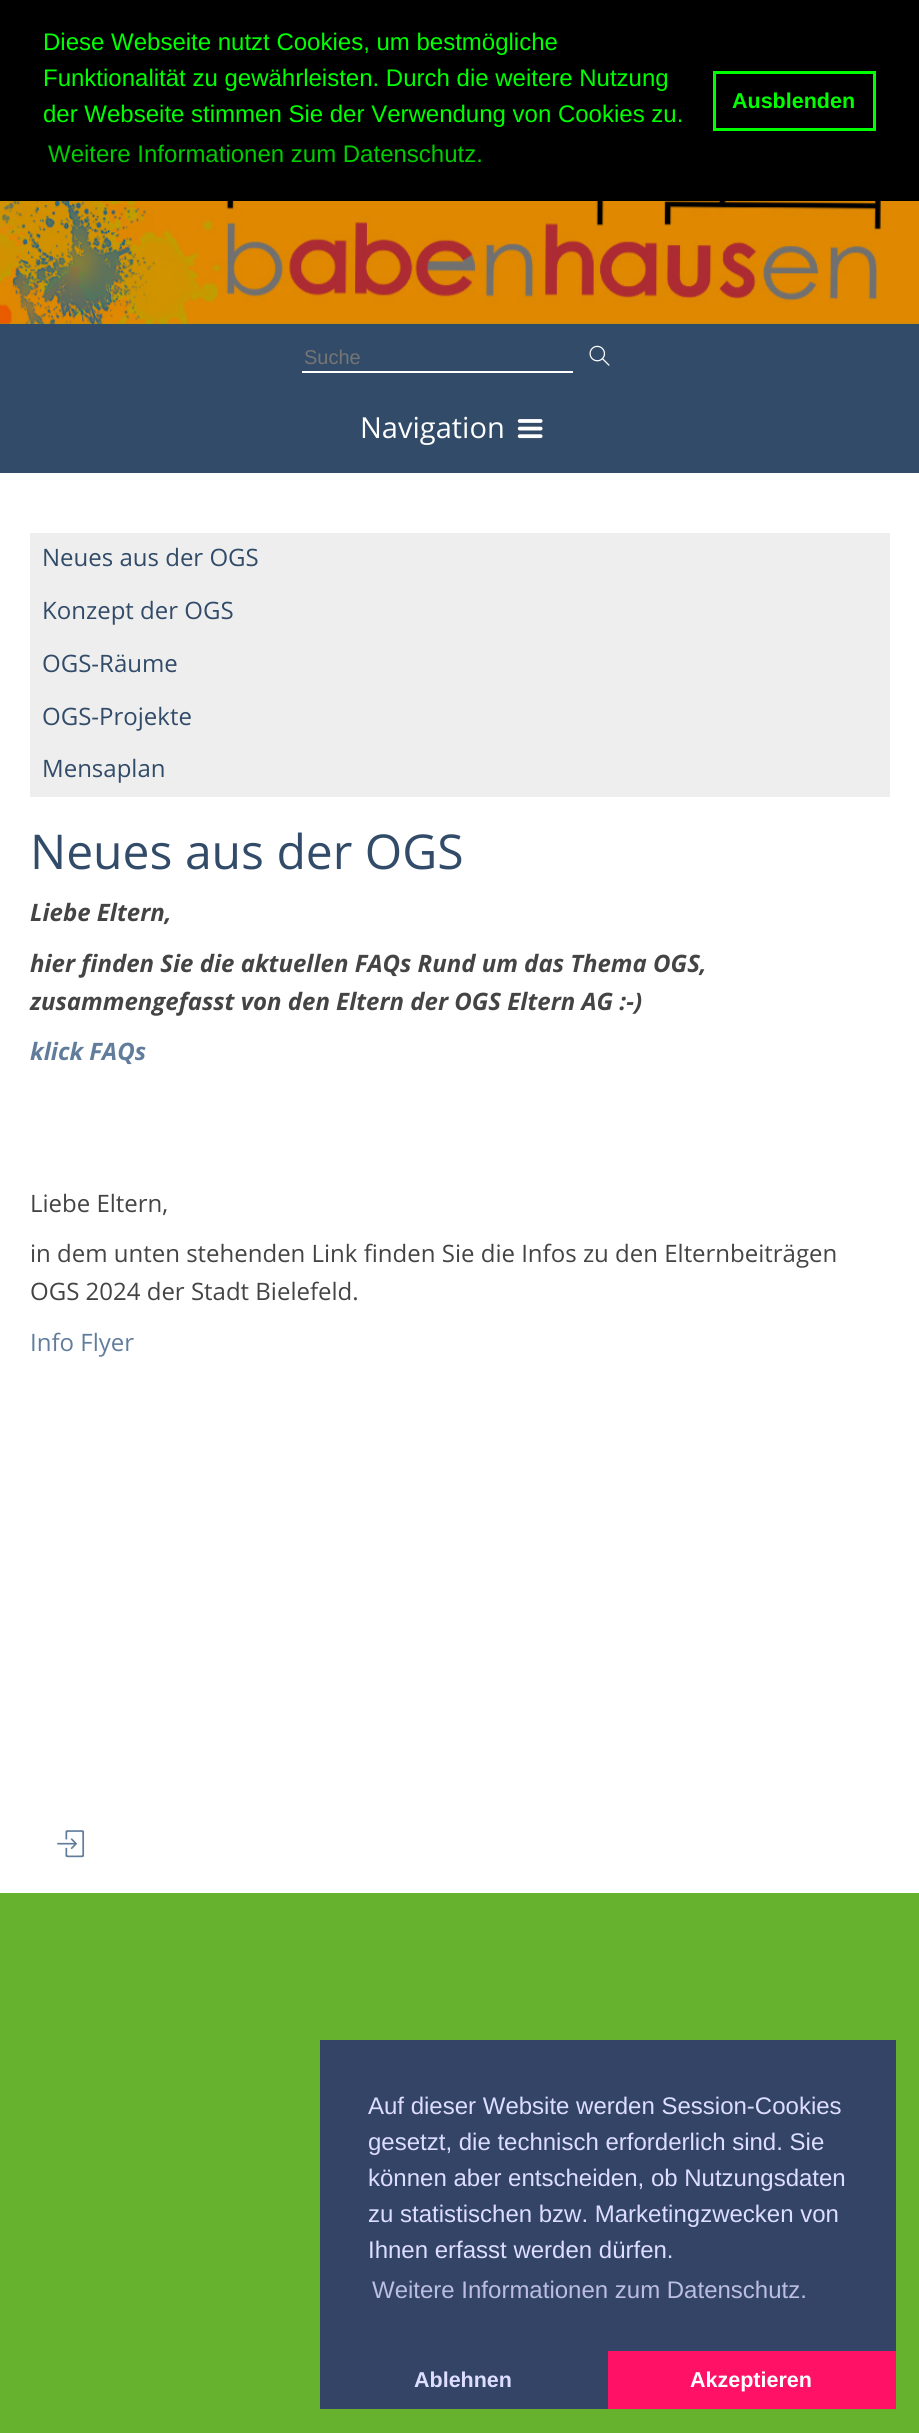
#include <cairo.h>
#include <math.h>
#include <stddef.h>


static void rgb(cairo_t *cr, int r, int g, int b)
{
	cairo_set_source_rgb(cr, r / 255.0, g / 255.0, b / 255.0);
}

static void face(cairo_t *cr, const char *family, double size, int italic, int bold)
{
	cairo_select_font_face(cr, family, italic ? CAIRO_FONT_SLANT_ITALIC : CAIRO_FONT_SLANT_NORMAL,
		bold ? CAIRO_FONT_WEIGHT_BOLD : CAIRO_FONT_WEIGHT_NORMAL);
	cairo_set_font_size(cr, size);
}

static void label(cairo_t *cr, double x, double y, const char *s)
{
	cairo_move_to(cr, x, y);
	cairo_show_text(cr, s);
}

static void rect(cairo_t *cr, double x, double y, double w, double h)
{
	cairo_rectangle(cr, x, y, w, h);
	cairo_fill(cr);
}

static void image(cairo_t *cr, const char *path, double x, double y, double w, double h)
{
	cairo_surface_t *image = cairo_image_surface_create_from_png(path);
	cairo_save(cr);
	cairo_set_source_surface(cr, image, x, y);
	cairo_rectangle(cr, x, y, w, h);
	cairo_fill(cr);
	cairo_restore(cr);
	cairo_surface_destroy(image);
}

static void draw(cairo_t *cr) {
	rgb(cr, 102, 178, 46);
	cairo_paint(cr);
	rgb(cr, 0, 0, 0);
	rect(cr, 0, 0, 919, 201);
	face(cr, "Liberation Sans", 24, 0, 0);
	rgb(cr, 0, 255, 0);
	label(cr, 43, 50, "Diese Webseite nutzt Cookies, um bestmögliche");
	label(cr, 43, 86, "Funktionalität zu gewährleisten. Durch die weitere Nutzung");
	label(cr, 43, 122, "der Webseite stimmen Sie der Verwendung von Cookies zu.");
	rgb(cr, 0, 204, 0);
	label(cr, 48, 162, "Weitere Informationen zum Datenschutz.");
	cairo_rectangle(cr, 714.5, 72.5, 160, 57);
	rgb(cr, 0, 255, 0);
	cairo_set_line_width(cr, 3);
	cairo_stroke(cr);
	face(cr, "Liberation Sans", 21.5, 0, 1);
	label(cr, 732, 108, "Ausblenden");
	image(cr, "image0.png", 0, 201, 919, 123);
	rgb(cr, 255, 255, 255);
	rect(cr, 0, 473, 919, 1420);
	rgb(cr, 49, 75, 104);
	rect(cr, 0, 324, 919, 149);
	rgb(cr, 255, 255, 255);
	rect(cr, 302, 371, 271, 2);
	face(cr, "Liberation Sans", 20, 0, 0);
	rgb(cr, 117, 117, 117);
	label(cr, 304, 364, "Suche");
	image(cr, "image1.png", 589, 345, 21, 21);
	face(cr, "Open Sans", 29, 0, 0);
	rgb(cr, 255, 255, 255);
	label(cr, 360, 438, "Navigation");
	image(cr, "image2.png", 517, 419, 26, 20);
	rgb(cr, 238, 238, 238);
	rect(cr, 30, 533, 860, 264);
	face(cr, "Open Sans", 24, 0, 0);
	rgb(cr, 49, 75, 104);
	label(cr, 42, 566, "Neues aus der OGS");
	label(cr, 42, 619, "Konzept der OGS");
	label(cr, 42, 672, "OGS-Räume");
	label(cr, 42, 725, "OGS-Projekte");
	label(cr, 42, 777, "Mensaplan");
	face(cr, "Open Sans", 48, 0, 0);
	label(cr, 30, 869, "Neues aus der OGS");
	face(cr, "Open Sans", 24, 1, 1);
	rgb(cr, 68, 68, 68);
	label(cr, 30, 921, "Liebe Eltern,");
	label(cr, 30, 972, "hier finden Sie die aktuellen FAQs Rund um das Thema OGS,");
	label(cr, 30, 1010, "zusammengefasst von den Eltern der OGS Eltern AG :-)");
	rgb(cr, 97, 125, 155);
	label(cr, 30, 1060, "klick FAQs");
	face(cr, "Open Sans", 24, 0, 0);
	rgb(cr, 68, 68, 68);
	label(cr, 30, 1212, "Liebe Eltern,");
	label(cr, 30, 1262, "in dem unten stehenden Link finden Sie die Infos zu den Elternbeiträgen");
	label(cr, 30, 1300, "OGS 2024 der Stadt Bielefeld.");
	rgb(cr, 97, 125, 155);
	label(cr, 30, 1351, "Info Flyer");
	image(cr, "image3.png", 57, 1830, 28, 28);
	rgb(cr, 51, 68, 102);
	rect(cr, 320, 2040, 576, 369);
	face(cr, "Liberation Sans", 24, 0, 0);
	rgb(cr, 221, 221, 255);
	label(cr, 368, 2114, "Auf dieser Website werden Session-Cookies");
	label(cr, 368, 2150, "gesetzt, die technisch erforderlich sind. Sie");
	label(cr, 368, 2186, "können aber entscheiden, ob Nutzungsdaten");
	label(cr, 368, 2222, "zu statistischen bzw. Marketingzwecken von");
	label(cr, 368, 2258, "Ihnen erfasst werden dürfen.");
	rgb(cr, 187, 190, 224);
	label(cr, 372, 2298, "Weitere Informationen zum Datenschutz.");
	face(cr, "Liberation Sans", 21.5, 0, 1);
	rgb(cr, 221, 221, 255);
	label(cr, 414, 2387, "Ablehnen");
	rgb(cr, 255, 17, 102);
	rect(cr, 608, 2351, 288, 58);
	rgb(cr, 255, 255, 255);
	label(cr, 690, 2387, "Akzeptieren");
}

int main(void) {
	cairo_surface_t *surface = cairo_image_surface_create(CAIRO_FORMAT_RGB24, 919, 2433);
	cairo_t *cr = cairo_create(surface);
	cairo_font_options_t *options = cairo_font_options_create();
	cairo_font_options_set_hint_metrics(options, CAIRO_HINT_METRICS_OFF);
	cairo_font_options_set_hint_style(options, CAIRO_HINT_STYLE_NONE);
	cairo_set_font_options(cr, options);
	cairo_set_miter_limit(cr, 4);
	draw(cr);
	cairo_surface_write_to_png(surface, "render.png");
	cairo_font_options_destroy(options);
	cairo_destroy(cr);
	cairo_surface_destroy(surface);
	return 0;
}
